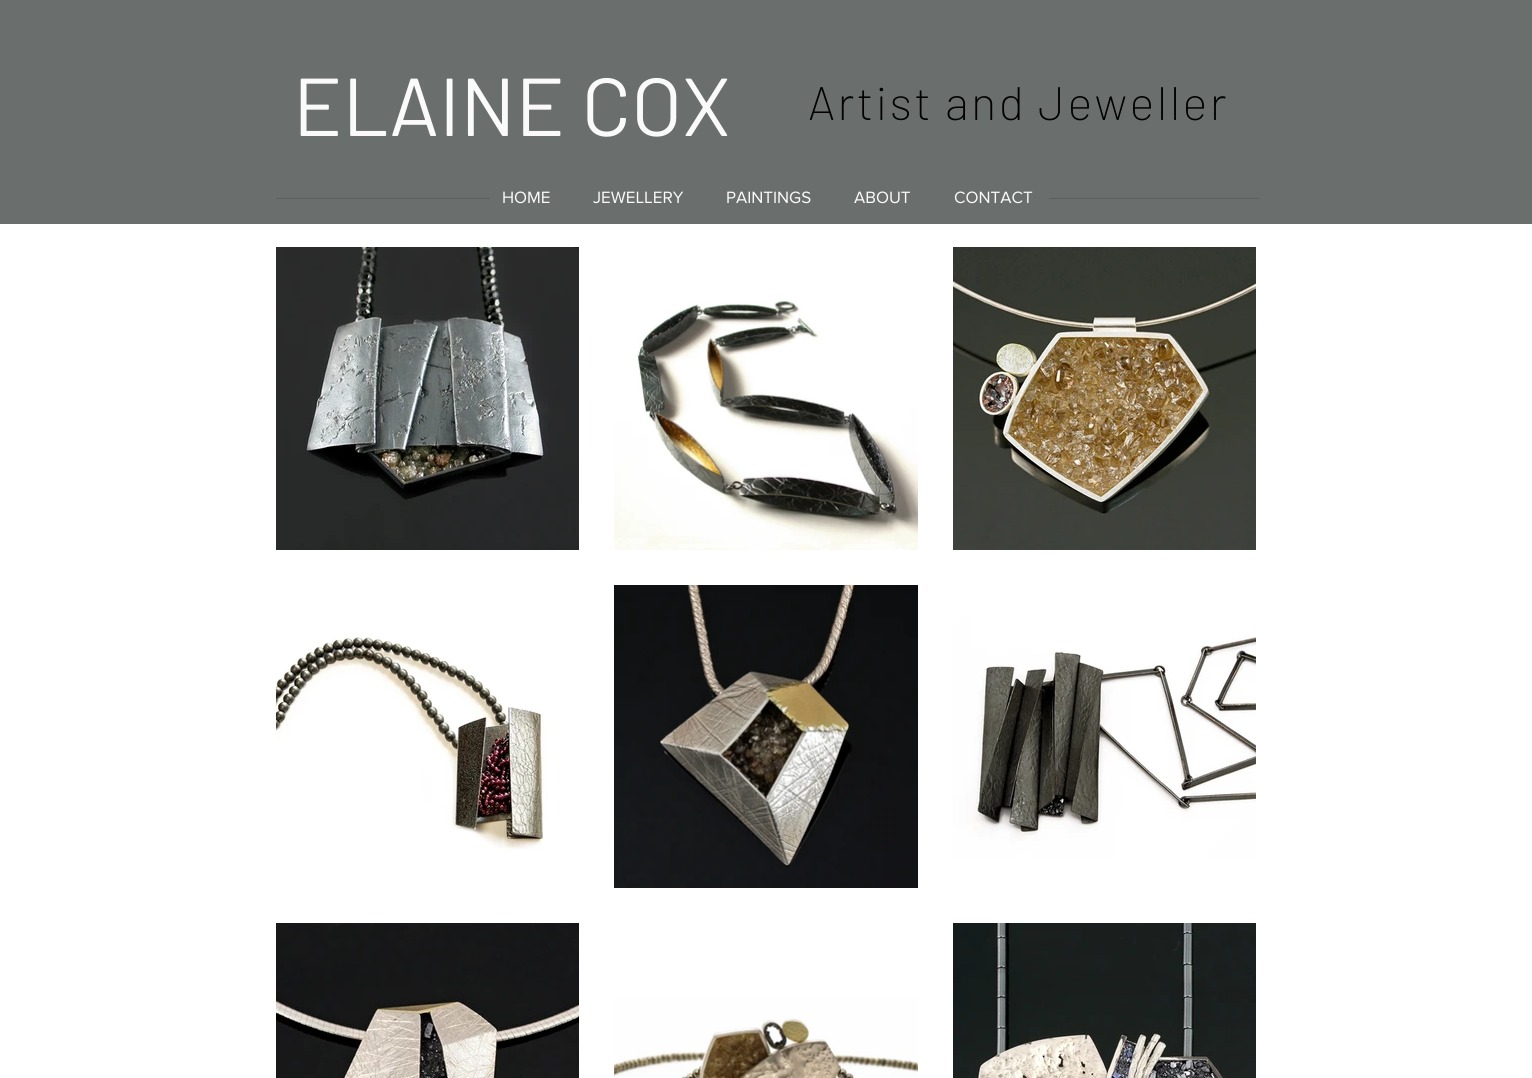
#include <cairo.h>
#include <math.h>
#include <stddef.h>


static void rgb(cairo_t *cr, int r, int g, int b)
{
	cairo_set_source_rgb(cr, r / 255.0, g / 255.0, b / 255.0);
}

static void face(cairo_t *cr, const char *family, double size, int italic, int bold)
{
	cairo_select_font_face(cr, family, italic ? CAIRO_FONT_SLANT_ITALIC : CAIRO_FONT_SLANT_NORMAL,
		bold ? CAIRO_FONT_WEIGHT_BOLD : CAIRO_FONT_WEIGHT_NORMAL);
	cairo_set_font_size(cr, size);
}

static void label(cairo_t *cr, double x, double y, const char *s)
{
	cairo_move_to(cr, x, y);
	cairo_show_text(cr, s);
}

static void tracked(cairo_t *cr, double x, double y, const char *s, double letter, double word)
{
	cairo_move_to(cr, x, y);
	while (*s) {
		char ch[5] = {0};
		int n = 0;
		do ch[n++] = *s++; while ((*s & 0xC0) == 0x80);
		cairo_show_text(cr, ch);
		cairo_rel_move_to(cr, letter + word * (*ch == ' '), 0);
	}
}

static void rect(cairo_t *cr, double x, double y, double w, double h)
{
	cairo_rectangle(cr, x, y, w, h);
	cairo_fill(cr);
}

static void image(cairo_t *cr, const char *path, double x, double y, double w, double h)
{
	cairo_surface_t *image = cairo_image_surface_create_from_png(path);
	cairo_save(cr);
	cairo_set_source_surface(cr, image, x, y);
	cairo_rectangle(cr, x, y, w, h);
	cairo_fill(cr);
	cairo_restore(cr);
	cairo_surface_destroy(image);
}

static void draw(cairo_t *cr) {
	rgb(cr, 255, 255, 255);
	cairo_paint(cr);
	rgb(cr, 106, 110, 108);
	rect(cr, 0, 0, 1532, 224);
	face(cr, "Barlow", 82, 0, 0);
	rgb(cr, 250, 250, 250);
	label(cr, 293, 136, "ELAINE COX");
	face(cr, "Barlow ExtraLight", 47, 0, 0);
	rgb(cr, 0, 0, 0);
	tracked(cr, 808, 120, "Artist and Jeweller", 2.4, 0);
	rgb(cr, 92, 95, 94);
	rect(cr, 276, 198, 214, 1);
	face(cr, "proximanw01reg", 17, 0, 0);
	rgb(cr, 250, 250, 250);
	label(cr, 502, 203, "HOME");
	label(cr, 593, 203, "JEWELLERY");
	label(cr, 726, 203, "PAINTINGS");
	label(cr, 854, 203, "ABOUT");
	label(cr, 954, 203, "CONTACT");
	rgb(cr, 92, 95, 94);
	rect(cr, 1049, 198, 210, 1);
	image(cr, "image0.png", 276, 247, 303, 303);
	image(cr, "image1.png", 614, 247, 304, 303);
	image(cr, "image2.png", 953, 247, 303, 303);
	image(cr, "image3.png", 276, 585, 303, 303);
	image(cr, "image4.png", 614, 585, 304, 303);
	image(cr, "image5.png", 953, 585, 303, 303);
	image(cr, "image6.png", 276, 923, 303, 155);
	image(cr, "image7.png", 614, 923, 304, 155);
	image(cr, "image8.png", 953, 923, 303, 155);
}

int main(void) {
	cairo_surface_t *surface = cairo_image_surface_create(CAIRO_FORMAT_RGB24, 1532, 1078);
	cairo_t *cr = cairo_create(surface);
	cairo_font_options_t *options = cairo_font_options_create();
	cairo_font_options_set_hint_metrics(options, CAIRO_HINT_METRICS_OFF);
	cairo_font_options_set_hint_style(options, CAIRO_HINT_STYLE_NONE);
	cairo_set_font_options(cr, options);
	cairo_set_miter_limit(cr, 4);
	draw(cr);
	cairo_surface_write_to_png(surface, "render.png");
	cairo_font_options_destroy(options);
	cairo_destroy(cr);
	cairo_surface_destroy(surface);
	return 0;
}
